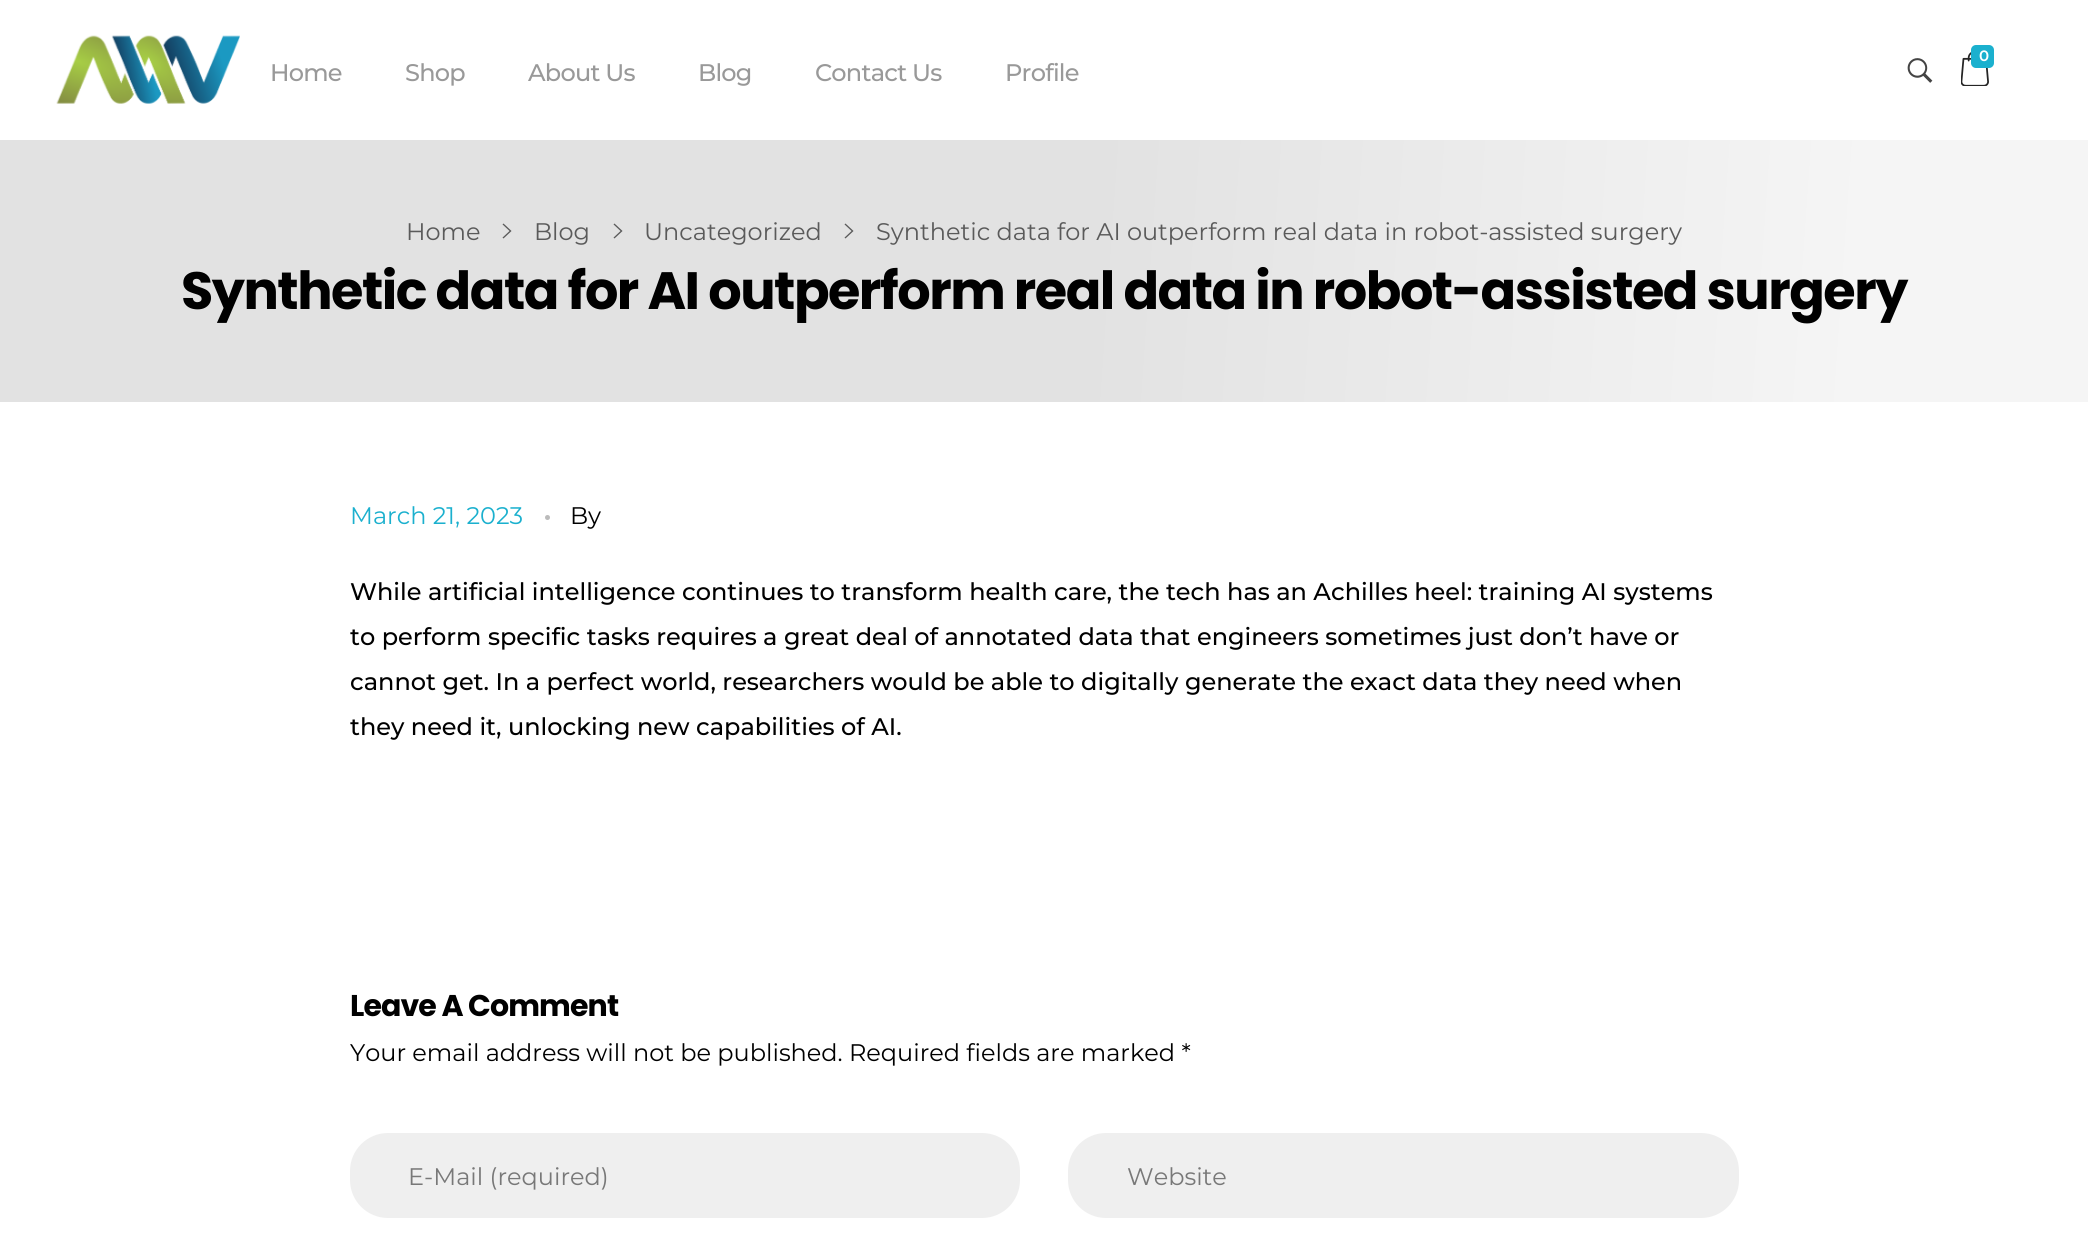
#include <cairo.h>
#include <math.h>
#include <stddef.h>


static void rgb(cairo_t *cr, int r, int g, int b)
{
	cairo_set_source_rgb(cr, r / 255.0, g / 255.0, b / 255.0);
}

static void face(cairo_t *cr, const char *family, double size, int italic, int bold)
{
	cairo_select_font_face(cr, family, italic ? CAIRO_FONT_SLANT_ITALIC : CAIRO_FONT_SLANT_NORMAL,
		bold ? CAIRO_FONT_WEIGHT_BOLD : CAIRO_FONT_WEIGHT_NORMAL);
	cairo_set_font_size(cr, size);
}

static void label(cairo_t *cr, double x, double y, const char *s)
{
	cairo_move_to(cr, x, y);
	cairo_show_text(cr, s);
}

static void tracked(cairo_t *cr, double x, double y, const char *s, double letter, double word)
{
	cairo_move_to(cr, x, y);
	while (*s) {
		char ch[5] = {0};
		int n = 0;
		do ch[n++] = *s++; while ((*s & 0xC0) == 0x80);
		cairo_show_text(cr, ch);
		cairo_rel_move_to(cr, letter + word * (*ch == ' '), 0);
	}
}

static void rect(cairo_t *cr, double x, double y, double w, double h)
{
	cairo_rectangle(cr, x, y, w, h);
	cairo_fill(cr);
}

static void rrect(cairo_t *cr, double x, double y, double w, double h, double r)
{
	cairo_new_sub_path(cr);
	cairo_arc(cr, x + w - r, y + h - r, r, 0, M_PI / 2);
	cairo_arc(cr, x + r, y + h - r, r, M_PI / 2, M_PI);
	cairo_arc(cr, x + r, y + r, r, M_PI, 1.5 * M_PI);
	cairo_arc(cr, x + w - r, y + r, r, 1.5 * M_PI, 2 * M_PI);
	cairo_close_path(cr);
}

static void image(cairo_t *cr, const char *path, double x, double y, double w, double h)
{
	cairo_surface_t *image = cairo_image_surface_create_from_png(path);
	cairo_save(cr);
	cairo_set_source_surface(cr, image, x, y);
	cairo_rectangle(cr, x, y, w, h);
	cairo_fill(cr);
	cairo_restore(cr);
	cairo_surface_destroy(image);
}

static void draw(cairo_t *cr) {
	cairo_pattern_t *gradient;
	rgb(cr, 255, 255, 255);
	cairo_paint(cr);
	image(cr, "image0.png", 56, 35, 184, 69);
	image(cr, "image1.png", 1961, 52, 28, 34);
	rgb(cr, 27, 176, 206);
	rrect(cr, 1971, 45, 23, 23, 5);
	cairo_fill(cr);
	face(cr, "Montserrat SemiBold", 15, 0, 0);
	rgb(cr, 255, 255, 255);
	label(cr, 1979, 61, "0");
	face(cr, "Montserrat Medium", 24, 0, 0);
	rgb(cr, 153, 153, 153);
	tracked(cr, 270, 81, "Home", -0.75, 0);
	tracked(cr, 405, 81, "Shop", -0.75, 0);
	tracked(cr, 528, 81, "About Us", -0.75, 0);
	tracked(cr, 698, 81, "Blog", -0.75, 0);
	tracked(cr, 815, 81, "Contact Us", -0.75, 0);
	tracked(cr, 1005, 81, "Profile", -0.75, 0);
	image(cr, "image2.png", 1907, 58, 26, 25);
	gradient = cairo_pattern_create_linear(-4.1, 197, 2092, 344);
	cairo_pattern_add_color_stop_rgba(gradient, 0.52, 0.886, 0.886, 0.886, 1);
	cairo_pattern_add_color_stop_rgba(gradient, 0.89, 0.961, 0.961, 0.961, 1);
	cairo_set_source(cr, gradient);
	cairo_pattern_destroy(gradient);
	rect(cr, 0, 140, 2088, 262);
	face(cr, "Montserrat", 24, 0, 0);
	rgb(cr, 90, 90, 90);
	label(cr, 406, 240, "Home");
	image(cr, "image3.png", 502, 223, 10, 16);
	label(cr, 534, 240, "Blog");
	image(cr, "image3.png", 613, 223, 10, 16);
	label(cr, 644, 240, "Uncategorized");
	image(cr, "image3.png", 844, 223, 10, 16);
	label(cr, 876, 240, "Synthetic data for AI outperform real data in robot-assisted surgery");
	face(cr, "Poppins", 52.5, 0, 1);
	rgb(cr, 0, 0, 0);
	tracked(cr, 181, 309, "Synthetic data for AI outperform real data in robot-assisted surgery", -1.5, 0);
	face(cr, "Montserrat", 24, 0, 0);
	rgb(cr, 27, 176, 206);
	label(cr, 350, 524, "March 21, 2023");
	rgb(cr, 187, 187, 187);
	cairo_new_path(cr);
	cairo_arc(cr, 547.5, 517.5, 2.5, 0, 2 * M_PI);
	cairo_fill(cr);
	rgb(cr, 0, 0, 0);
	label(cr, 570, 524, "By");
	face(cr, "Montserrat Medium", 24, 0, 0);
	label(cr, 350, 600, "While artificial intelligence continues to transform health care, the tech has an Achilles heel: training AI systems");
	label(cr, 350, 645, "to perform specific tasks requires a great deal of annotated data that engineers sometimes just don’t have or");
	label(cr, 350, 690, "cannot get. In a perfect world, researchers would be able to digitally generate the exact data they need when");
	label(cr, 350, 735, "they need it, unlocking new capabilities of AI.");
	face(cr, "Poppins", 30, 0, 1);
	tracked(cr, 350, 1016, "Leave A Comment", -0.9, 0);
	face(cr, "Montserrat", 24, 0, 0);
	label(cr, 350, 1061, "Your email address will not be published. Required fields are marked *");
	rgb(cr, 239, 239, 239);
	rrect(cr, 350, 1133, 670, 85, 38);
	cairo_fill(cr);
	rgb(cr, 120, 120, 120);
	label(cr, 408, 1185, "E-Mail (required)");
	rgb(cr, 239, 239, 239);
	rrect(cr, 1068, 1133, 671, 85, 38);
	cairo_fill(cr);
	rgb(cr, 120, 120, 120);
	label(cr, 1127, 1185, "Website");
}

int main(void) {
	cairo_surface_t *surface = cairo_image_surface_create(CAIRO_FORMAT_RGB24, 2088, 1242);
	cairo_t *cr = cairo_create(surface);
	cairo_font_options_t *options = cairo_font_options_create();
	cairo_font_options_set_hint_metrics(options, CAIRO_HINT_METRICS_OFF);
	cairo_font_options_set_hint_style(options, CAIRO_HINT_STYLE_NONE);
	cairo_set_font_options(cr, options);
	cairo_set_miter_limit(cr, 4);
	draw(cr);
	cairo_surface_write_to_png(surface, "render.png");
	cairo_font_options_destroy(options);
	cairo_destroy(cr);
	cairo_surface_destroy(surface);
	return 0;
}
